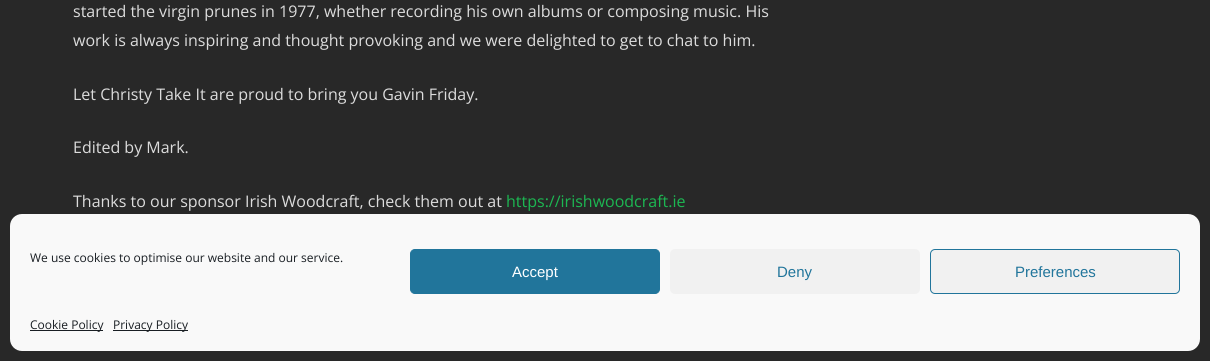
#include <cairo.h>
#include <math.h>
#include <stddef.h>


static void rgb(cairo_t *cr, int r, int g, int b)
{
	cairo_set_source_rgb(cr, r / 255.0, g / 255.0, b / 255.0);
}

static void face(cairo_t *cr, const char *family, double size, int italic, int bold)
{
	cairo_select_font_face(cr, family, italic ? CAIRO_FONT_SLANT_ITALIC : CAIRO_FONT_SLANT_NORMAL,
		bold ? CAIRO_FONT_WEIGHT_BOLD : CAIRO_FONT_WEIGHT_NORMAL);
	cairo_set_font_size(cr, size);
}

static void label(cairo_t *cr, double x, double y, const char *s)
{
	cairo_move_to(cr, x, y);
	cairo_show_text(cr, s);
}

static void rect(cairo_t *cr, double x, double y, double w, double h)
{
	cairo_rectangle(cr, x, y, w, h);
	cairo_fill(cr);
}

static void rrect(cairo_t *cr, double x, double y, double w, double h, double r)
{
	cairo_new_sub_path(cr);
	cairo_arc(cr, x + w - r, y + h - r, r, 0, M_PI / 2);
	cairo_arc(cr, x + r, y + h - r, r, M_PI / 2, M_PI);
	cairo_arc(cr, x + r, y + r, r, M_PI, 1.5 * M_PI);
	cairo_arc(cr, x + w - r, y + r, r, 1.5 * M_PI, 2 * M_PI);
	cairo_close_path(cr);
}

static void draw(cairo_t *cr) {
	rgb(cr, 40, 40, 40);
	cairo_paint(cr);
	face(cr, "Open Sans", 16, 0, 0);
	rgb(cr, 220, 220, 220);
	label(cr, 73, 17, "started the virgin prunes in 1977, whether recording his own albums or composing music. His");
	label(cr, 73, 46, "work is always inspiring and thought provoking and we were delighted to get to chat to him.");
	label(cr, 73, 100, "Let Christy Take It are proud to bring you Gavin Friday.");
	label(cr, 73, 153, "Edited by Mark.");
	label(cr, 73, 207, "Thanks to our sponsor Irish Woodcraft, check them out at");
	rgb(cr, 28, 183, 82);
	label(cr, 506, 207, "https://irishwoodcraft.ie");
	rgb(cr, 249, 249, 249);
	rrect(cr, 10, 214, 1190, 137, 12);
	cairo_fill(cr);
	face(cr, "Open Sans", 12, 0, 0);
	rgb(cr, 25, 30, 35);
	label(cr, 30, 262, "We use cookies to optimise our website and our service.");
	rgb(cr, 33, 117, 155);
	rrect(cr, 410.5, 249.5, 249, 44, 4.5);
	cairo_fill_preserve(cr);
	cairo_set_line_width(cr, 1);
	cairo_stroke(cr);
	face(cr, "Liberation Sans", 15, 0, 0);
	rgb(cr, 255, 255, 255);
	label(cr, 512, 277, "Accept");
	rgb(cr, 241, 241, 241);
	rrect(cr, 670, 249, 250, 45, 5);
	cairo_fill(cr);
	rgb(cr, 33, 117, 155);
	label(cr, 777, 277, "Deny");
	rgb(cr, 241, 241, 241);
	rrect(cr, 930.5, 249.5, 249, 44, 4.5);
	cairo_fill_preserve(cr);
	rgb(cr, 33, 117, 155);
	cairo_stroke(cr);
	label(cr, 1015, 277, "Preferences");
	rgb(cr, 25, 30, 35);
	rect(cr, 30, 330, 73, 1);
	face(cr, "Open Sans", 12, 0, 0);
	label(cr, 30, 329, "Cookie Policy");
	rect(cr, 113, 330, 75, 1);
	label(cr, 113, 329, "Privacy Policy");
}

int main(void) {
	cairo_surface_t *surface = cairo_image_surface_create(CAIRO_FORMAT_RGB24, 1210, 361);
	cairo_t *cr = cairo_create(surface);
	cairo_font_options_t *options = cairo_font_options_create();
	cairo_font_options_set_hint_metrics(options, CAIRO_HINT_METRICS_OFF);
	cairo_font_options_set_hint_style(options, CAIRO_HINT_STYLE_NONE);
	cairo_set_font_options(cr, options);
	cairo_set_miter_limit(cr, 4);
	draw(cr);
	cairo_surface_write_to_png(surface, "render.png");
	cairo_font_options_destroy(options);
	cairo_destroy(cr);
	cairo_surface_destroy(surface);
	return 0;
}
